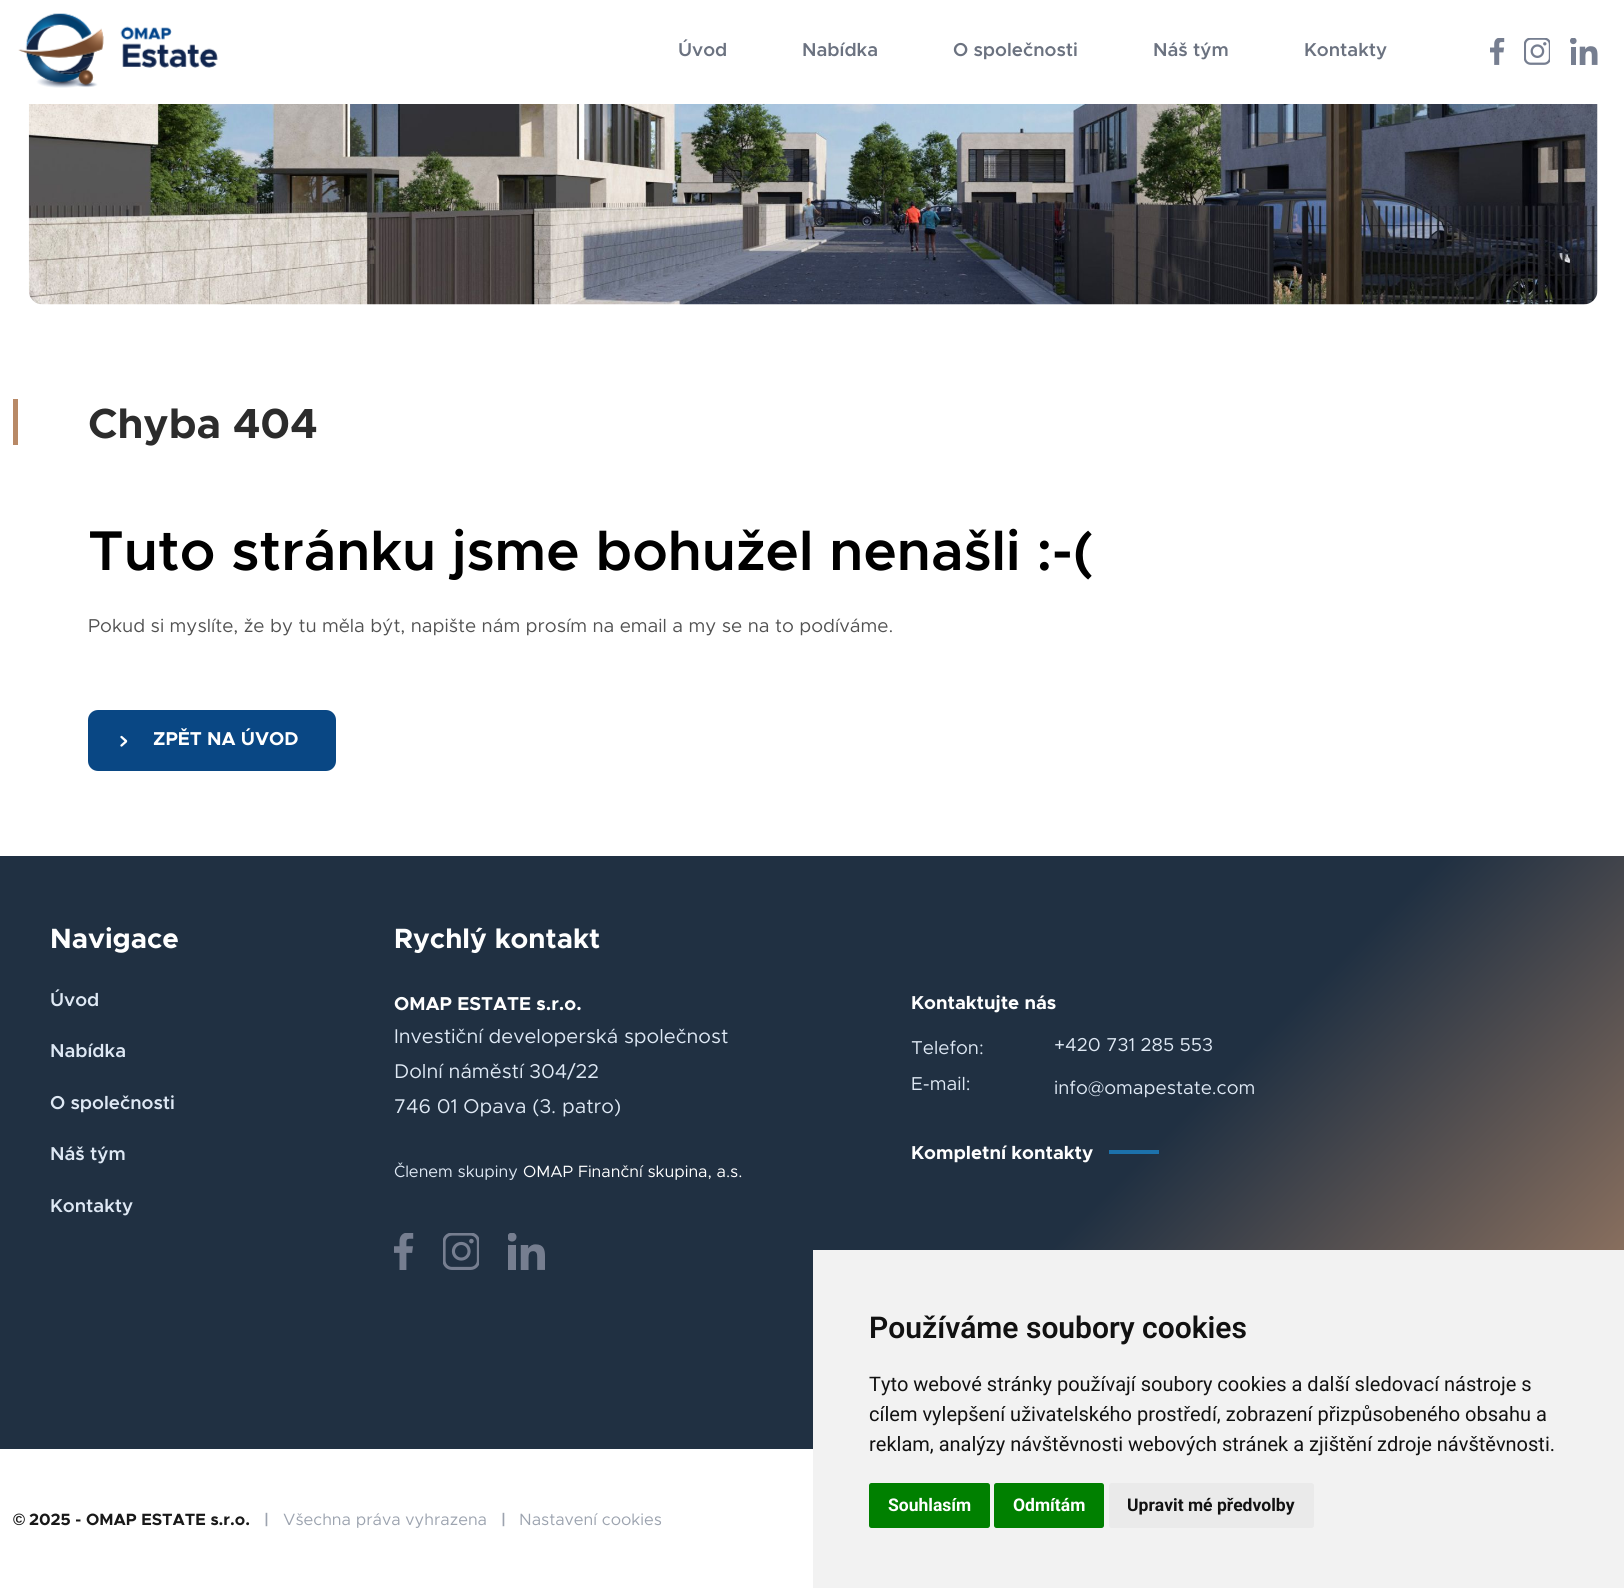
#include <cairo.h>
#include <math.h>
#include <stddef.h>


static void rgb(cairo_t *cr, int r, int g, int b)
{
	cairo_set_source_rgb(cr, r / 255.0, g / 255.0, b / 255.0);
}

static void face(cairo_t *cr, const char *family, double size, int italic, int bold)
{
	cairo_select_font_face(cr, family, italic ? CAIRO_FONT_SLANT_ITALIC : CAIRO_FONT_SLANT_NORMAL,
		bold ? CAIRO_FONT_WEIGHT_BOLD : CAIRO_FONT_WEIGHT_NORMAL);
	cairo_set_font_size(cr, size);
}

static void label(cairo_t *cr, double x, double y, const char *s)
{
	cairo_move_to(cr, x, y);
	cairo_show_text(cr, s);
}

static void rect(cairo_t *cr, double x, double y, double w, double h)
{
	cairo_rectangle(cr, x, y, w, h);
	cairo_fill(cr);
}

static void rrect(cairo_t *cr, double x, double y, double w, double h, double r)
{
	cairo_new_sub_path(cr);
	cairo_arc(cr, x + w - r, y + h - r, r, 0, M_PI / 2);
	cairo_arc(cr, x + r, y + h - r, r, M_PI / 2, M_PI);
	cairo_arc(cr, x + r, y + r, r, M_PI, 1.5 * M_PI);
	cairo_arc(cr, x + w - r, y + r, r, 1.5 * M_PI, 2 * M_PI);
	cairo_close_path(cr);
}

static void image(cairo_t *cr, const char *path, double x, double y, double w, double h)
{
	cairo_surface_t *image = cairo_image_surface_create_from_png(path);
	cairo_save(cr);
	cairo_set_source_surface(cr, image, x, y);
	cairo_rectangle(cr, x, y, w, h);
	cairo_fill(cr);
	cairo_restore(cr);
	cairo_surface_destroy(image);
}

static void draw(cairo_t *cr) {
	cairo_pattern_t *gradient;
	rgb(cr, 255, 255, 255);
	cairo_paint(cr);
	image(cr, "image0.png", 18, 13, 200, 75);
	face(cr, "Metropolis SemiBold", 18.75, 0, 0);
	rgb(cr, 107, 114, 128);
	label(cr, 678, 56, "Úvod");
	label(cr, 802, 56, "Nabídka");
	label(cr, 953, 56, "O společnosti");
	label(cr, 1153, 56, "Náš tým");
	label(cr, 1304, 56, "Kontakty");
	image(cr, "image1.png", 1490, 38, 15, 27);
	image(cr, "image2.png", 1524, 38, 26, 27);
	image(cr, "image3.png", 1570, 38, 28, 27);
	image(cr, "image4.png", 28, 104, 1570, 201);
	rgb(cr, 184, 137, 102);
	rect(cr, 13, 399, 5, 46);
	face(cr, "Metropolis", 42.25, 0, 1);
	rgb(cr, 44, 44, 44);
	label(cr, 88, 438, "Chyba 404");
	face(cr, "Metropolis SemiBold", 56.25, 0, 0);
	rgb(cr, 0, 0, 0);
	label(cr, 88, 570, "Tuto stránku jsme bohužel nenašli :-(");
	face(cr, "Metropolis", 18.75, 0, 0);
	rgb(cr, 82, 82, 82);
	label(cr, 88, 632, "Pokud si myslíte, že by tu měla být, napište nám prosím na email a my se na to podíváme.");
	rgb(cr, 9, 71, 132);
	rrect(cr, 88, 710, 248, 61, 10);
	cairo_fill(cr);
	cairo_new_path(cr);
	cairo_move_to(cr, 121.5, 745.5);
	cairo_line_to(cr, 126, 741.5);
	cairo_move_to(cr, 121.5, 737);
	cairo_line_to(cr, 126, 741);
	rgb(cr, 255, 255, 255);
	cairo_set_line_width(cr, 2.3);
	cairo_set_line_cap(cr, CAIRO_LINE_CAP_ROUND);
	cairo_stroke(cr);
	face(cr, "Metropolis", 18.75, 0, 1);
	label(cr, 153, 745, "ZPĚT NA ÚVOD");
	gradient = cairo_pattern_create_linear(258, 598, 1422, 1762);
	cairo_pattern_add_color_stop_rgba(gradient, 0.62, 0.125, 0.188, 0.259, 1);
	cairo_pattern_add_color_stop_rgba(gradient, 1, 0.753, 0.565, 0.427, 1);
	cairo_set_source(cr, gradient);
	cairo_pattern_destroy(gradient);
	rect(cr, 0, 856, 1624, 593);
	face(cr, "Metropolis", 28, 0, 1);
	rgb(cr, 255, 255, 255);
	label(cr, 50, 948, "Navigace");
	face(cr, "Metropolis SemiBold", 18.75, 0, 0);
	rgb(cr, 222, 232, 244);
	label(cr, 50, 1006, "Úvod");
	label(cr, 50, 1057, "Nabídka");
	label(cr, 50, 1109, "O společnosti");
	label(cr, 50, 1160, "Náš tým");
	label(cr, 50, 1212, "Kontakty");
	face(cr, "Metropolis", 28, 0, 1);
	rgb(cr, 255, 255, 255);
	label(cr, 394, 948, "Rychlý kontakt");
	face(cr, "Metropolis", 18.75, 0, 1);
	label(cr, 394, 1010, "OMAP ESTATE s.r.o.");
	face(cr, "Metropolis", 20, 0, 0);
	rgb(cr, 222, 232, 244);
	label(cr, 394, 1043, "Investiční developerská společnost");
	label(cr, 394, 1078, "Dolní náměstí 304/22");
	label(cr, 394, 1113, "746 01 Opava (3. patro)");
	face(cr, "Metropolis", 16.4, 0, 0);
	label(cr, 394, 1177, "Členem skupiny");
	rgb(cr, 255, 255, 255);
	label(cr, 523, 1177, "OMAP Finanční skupina, a.s.");
	image(cr, "image5.png", 394, 1233, 20, 37);
	image(cr, "image6.png", 443, 1233, 36, 37);
	image(cr, "image7.png", 508, 1233, 37, 37);
	face(cr, "Metropolis", 18.75, 0, 1);
	label(cr, 911, 1009, "Kontaktujte nás");
	face(cr, "Metropolis", 18.75, 0, 0);
	rgb(cr, 222, 232, 244);
	label(cr, 911, 1054, "Telefon:");
	label(cr, 911, 1090, "E-mail:");
	label(cr, 1054, 1051, "+420 731 285 553");
	label(cr, 1054, 1094, "info@omapestate.com");
	face(cr, "Metropolis", 18.75, 0, 1);
	rgb(cr, 255, 255, 255);
	label(cr, 911, 1159, "Kompletní kontakty");
	rgb(cr, 28, 113, 171);
	rect(cr, 1109, 1150, 50, 4);
	face(cr, "Liberation Sans", 16.4, 0, 1);
	rgb(cr, 25, 25, 25);
	label(cr, 13, 1525, "©");
	face(cr, "Metropolis", 16.4, 0, 1);
	label(cr, 29, 1525, "2025 - OMAP ESTATE s.r.o.");
	rgb(cr, 156, 163, 175);
	label(cr, 264, 1525, "|");
	face(cr, "Metropolis", 16.4, 0, 0);
	label(cr, 283, 1525, "Všechna práva vyhrazena");
	face(cr, "Metropolis", 16.4, 0, 1);
	label(cr, 501, 1525, "|");
	face(cr, "Metropolis", 16.4, 0, 0);
	label(cr, 519, 1525, "Nastavení cookies");
	rgb(cr, 242, 242, 242);
	rect(cr, 813, 1250, 811, 338);
	face(cr, "Roboto SemiBold", 30, 0, 0);
	rgb(cr, 17, 17, 17);
	label(cr, 869, 1338, "Používáme soubory cookies");
	face(cr, "Roboto", 20, 0, 0);
	label(cr, 869, 1391, "Tyto webové stránky používají soubory cookies a další sledovací nástroje s");
	label(cr, 869, 1421, "cílem vylepšení uživatelského prostředí, zobrazení přizpůsobeného obsahu a");
	label(cr, 869, 1451, "reklam, analýzy návštěvnosti webových stránek a zjištění zdroje návštěvnosti.");
	rgb(cr, 0, 128, 0);
	rrect(cr, 869, 1483, 121, 45, 2.5);
	cairo_fill(cr);
	face(cr, "Roboto", 17.5, 0, 1);
	rgb(cr, 255, 255, 255);
	label(cr, 888, 1511, "Souhlasím");
	rgb(cr, 0, 128, 0);
	rrect(cr, 994, 1483, 110, 45, 2.5);
	cairo_fill(cr);
	rgb(cr, 255, 255, 255);
	label(cr, 1013, 1511, "Odmítám");
	rgb(cr, 234, 234, 234);
	rrect(cr, 1109, 1483, 205, 45, 2.5);
	cairo_fill(cr);
	rgb(cr, 17, 17, 17);
	label(cr, 1127, 1511, "Upravit mé předvolby");
}

int main(void) {
	cairo_surface_t *surface = cairo_image_surface_create(CAIRO_FORMAT_RGB24, 1624, 1588);
	cairo_t *cr = cairo_create(surface);
	cairo_font_options_t *options = cairo_font_options_create();
	cairo_font_options_set_hint_metrics(options, CAIRO_HINT_METRICS_OFF);
	cairo_font_options_set_hint_style(options, CAIRO_HINT_STYLE_NONE);
	cairo_set_font_options(cr, options);
	cairo_set_miter_limit(cr, 4);
	draw(cr);
	cairo_surface_write_to_png(surface, "render.png");
	cairo_font_options_destroy(options);
	cairo_destroy(cr);
	cairo_surface_destroy(surface);
	return 0;
}
